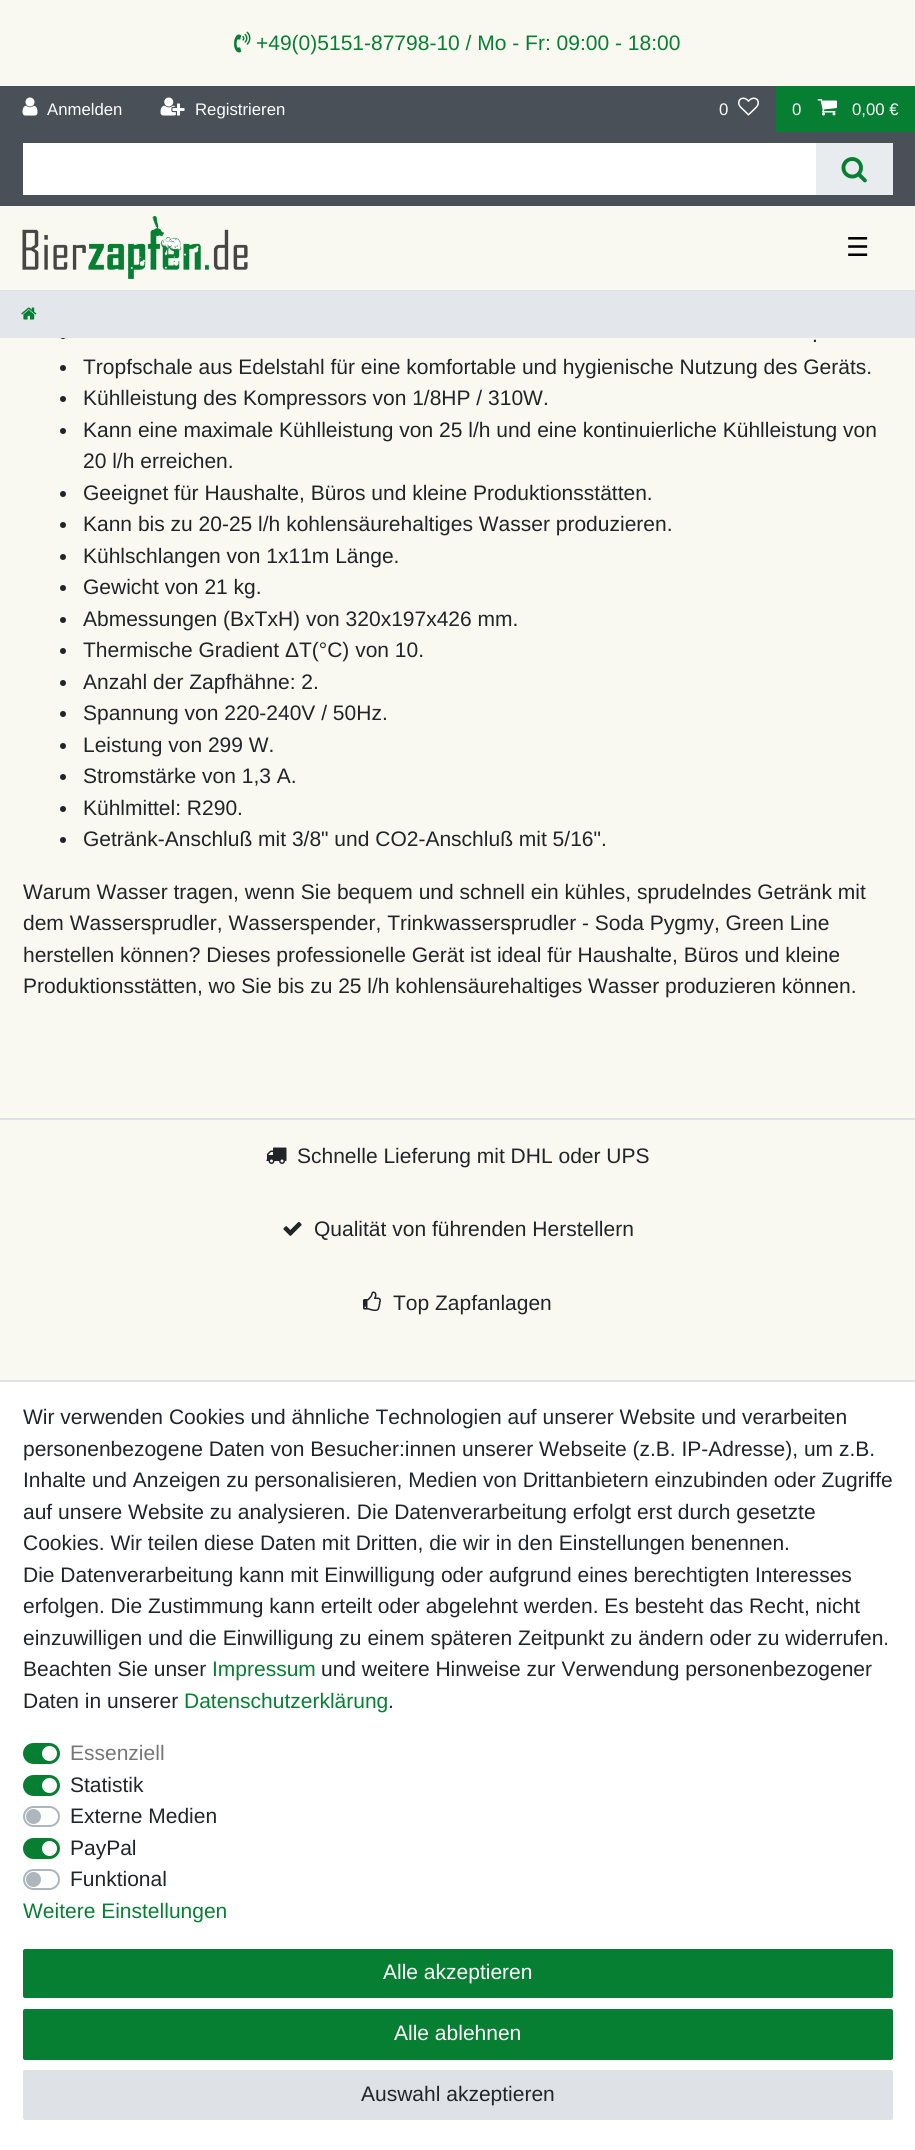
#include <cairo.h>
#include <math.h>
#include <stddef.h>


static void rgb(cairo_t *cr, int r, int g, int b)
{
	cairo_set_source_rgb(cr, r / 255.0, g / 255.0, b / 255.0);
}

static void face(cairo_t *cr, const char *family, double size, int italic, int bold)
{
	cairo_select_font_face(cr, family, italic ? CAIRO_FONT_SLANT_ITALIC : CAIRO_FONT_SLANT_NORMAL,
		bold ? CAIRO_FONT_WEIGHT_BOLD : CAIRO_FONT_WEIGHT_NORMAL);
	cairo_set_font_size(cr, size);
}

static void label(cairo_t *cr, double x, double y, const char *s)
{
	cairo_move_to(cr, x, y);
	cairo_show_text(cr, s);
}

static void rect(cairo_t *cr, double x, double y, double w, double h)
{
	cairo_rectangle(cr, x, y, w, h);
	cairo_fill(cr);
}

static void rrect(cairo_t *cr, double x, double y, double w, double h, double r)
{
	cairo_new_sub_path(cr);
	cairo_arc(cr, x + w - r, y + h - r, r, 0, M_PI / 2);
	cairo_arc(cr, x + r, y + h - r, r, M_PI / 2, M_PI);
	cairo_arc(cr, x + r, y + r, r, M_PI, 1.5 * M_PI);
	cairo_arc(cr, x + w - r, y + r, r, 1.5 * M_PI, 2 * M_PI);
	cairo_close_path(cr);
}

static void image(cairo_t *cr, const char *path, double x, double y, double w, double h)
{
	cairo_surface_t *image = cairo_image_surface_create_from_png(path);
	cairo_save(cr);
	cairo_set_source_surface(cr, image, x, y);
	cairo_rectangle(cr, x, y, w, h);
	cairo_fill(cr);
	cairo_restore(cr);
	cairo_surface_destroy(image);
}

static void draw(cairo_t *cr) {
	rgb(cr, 249, 248, 241);
	cairo_paint(cr);
	image(cr, "image0.png", 234, 31, 17, 22);
	face(cr, "Liberation Sans", 21, 0, 0);
	rgb(cr, 7, 127, 50);
	label(cr, 256, 50, "+49(0)5151-87798-10 / Mo - Fr: 09:00 - 18:00");
	rgb(cr, 73, 80, 87);
	rect(cr, 0, 86, 915, 120);
	image(cr, "image1.png", 22, 97, 16, 19);
	face(cr, "Liberation Sans", 16.75, 0, 0);
	rgb(cr, 255, 255, 255);
	label(cr, 47, 115, "Anmelden");
	image(cr, "image2.png", 160, 97, 25, 19);
	label(cr, 195, 115, "Registrieren");
	label(cr, 719, 115, "0");
	image(cr, "image3.png", 738, 97, 21, 19);
	rgb(cr, 7, 127, 50);
	rect(cr, 776, 86, 139, 46);
	rgb(cr, 255, 255, 255);
	label(cr, 792, 115, "0");
	image(cr, "image4.png", 817, 99, 20, 17);
	label(cr, 852, 115, "0,00 €");
	rect(cr, 23, 143, 793, 52);
	rgb(cr, 233, 236, 239);
	rect(cr, 816, 143, 77, 52);
	image(cr, "image5.png", 841, 157, 26, 26);
	rgb(cr, 222, 226, 230);
	rect(cr, 0, 290, 915, 1);
	image(cr, "image6.png", 22, 216, 226, 63);
	face(cr, "DejaVu Sans", 26, 0, 0);
	rgb(cr, 0, 0, 0);
	label(cr, 846, 256, "☰");
	rgb(cr, 33, 37, 41);
	cairo_new_path(cr);
	cairo_arc(cr, 63, 336, 3, 0, 2 * M_PI);
	cairo_fill(cr);
	rgb(cr, 227, 231, 235);
	rect(cr, 0, 291, 915, 47);
	image(cr, "image7.png", 21, 307, 16, 13);
	face(cr, "Liberation Sans", 21, 0, 0);
	rgb(cr, 33, 37, 41);
	label(cr, 812, 342, ".");
	cairo_new_path(cr);
	cairo_arc(cr, 63, 368, 3, 0, 2 * M_PI);
	cairo_fill(cr);
	label(cr, 83, 374, "Tropfschale aus Edelstahl für eine komfortable und hygienische Nutzung des Geräts.");
	cairo_new_path(cr);
	cairo_arc(cr, 63, 399, 3, 0, 2 * M_PI);
	cairo_fill(cr);
	label(cr, 83, 405, "Kühlleistung des Kompressors von 1/8HP / 310W.");
	cairo_new_path(cr);
	cairo_arc(cr, 63, 431, 3, 0, 2 * M_PI);
	cairo_fill(cr);
	label(cr, 83, 437, "Kann eine maximale Kühlleistung von 25 l/h und eine kontinuierliche Kühlleistung von");
	label(cr, 83, 468, "20 l/h erreichen.");
	cairo_new_path(cr);
	cairo_arc(cr, 63, 494, 3, 0, 2 * M_PI);
	cairo_fill(cr);
	label(cr, 83, 500, "Geeignet für Haushalte, Büros und kleine Produktionsstätten.");
	cairo_new_path(cr);
	cairo_arc(cr, 63, 525, 3, 0, 2 * M_PI);
	cairo_fill(cr);
	label(cr, 83, 531, "Kann bis zu 20-25 l/h kohlensäurehaltiges Wasser produzieren.");
	cairo_new_path(cr);
	cairo_arc(cr, 63, 557, 3, 0, 2 * M_PI);
	cairo_fill(cr);
	label(cr, 83, 563, "Kühlschlangen von 1x11m Länge.");
	cairo_new_path(cr);
	cairo_arc(cr, 63, 588, 3, 0, 2 * M_PI);
	cairo_fill(cr);
	label(cr, 83, 594, "Gewicht von 21 kg.");
	cairo_new_path(cr);
	cairo_arc(cr, 63, 620, 3, 0, 2 * M_PI);
	cairo_fill(cr);
	label(cr, 83, 626, "Abmessungen (BxTxH) von 320x197x426 mm.");
	cairo_new_path(cr);
	cairo_arc(cr, 63, 651, 3, 0, 2 * M_PI);
	cairo_fill(cr);
	label(cr, 83, 657, "Thermische Gradient ΔT(°C) von 10.");
	cairo_new_path(cr);
	cairo_arc(cr, 63, 683, 3, 0, 2 * M_PI);
	cairo_fill(cr);
	label(cr, 83, 689, "Anzahl der Zapfhähne: 2.");
	cairo_new_path(cr);
	cairo_arc(cr, 63, 714, 3, 0, 2 * M_PI);
	cairo_fill(cr);
	label(cr, 83, 720, "Spannung von 220-240V / 50Hz.");
	cairo_new_path(cr);
	cairo_arc(cr, 63, 746, 3, 0, 2 * M_PI);
	cairo_fill(cr);
	label(cr, 83, 752, "Leistung von 299 W.");
	cairo_new_path(cr);
	cairo_arc(cr, 63, 777, 3, 0, 2 * M_PI);
	cairo_fill(cr);
	label(cr, 83, 783, "Stromstärke von 1,3 A.");
	cairo_new_path(cr);
	cairo_arc(cr, 63, 809, 3, 0, 2 * M_PI);
	cairo_fill(cr);
	label(cr, 83, 815, "Kühlmittel: R290.");
	cairo_new_path(cr);
	cairo_arc(cr, 63, 840, 3, 0, 2 * M_PI);
	cairo_fill(cr);
	label(cr, 83, 846, "Getränk-Anschluß mit 3/8\" und CO2-Anschluß mit 5/16\".");
	label(cr, 23, 899, "Warum Wasser tragen, wenn Sie bequem und schnell ein kühles, sprudelndes Getränk mit");
	label(cr, 23, 930, "dem Wassersprudler, Wasserspender, Trinkwassersprudler - Soda Pygmy, Green Line");
	label(cr, 23, 962, "herstellen können? Dieses professionelle Gerät ist ideal für Haushalte, Büros und kleine");
	label(cr, 23, 993, "Produktionsstätten, wo Sie bis zu 25 l/h kohlensäurehaltiges Wasser produzieren können.");
	rgb(cr, 222, 226, 230);
	rect(cr, 0, 1118, 915, 2);
	image(cr, "image8.png", 266, 1147, 21, 17);
	rgb(cr, 33, 37, 41);
	label(cr, 297, 1163, "Schnelle Lieferung mit DHL oder UPS");
	image(cr, "image9.png", 283, 1221, 19, 15);
	label(cr, 314, 1236, "Qualität von führenden Herstellern");
	image(cr, "image10.png", 363, 1291, 18, 20);
	label(cr, 393, 1310, "Top Zapfanlagen");
	rgb(cr, 255, 255, 255);
	rect(cr, 0, 1382, 915, 768);
	rgb(cr, 222, 226, 230);
	rect(cr, 0, 1380, 915, 2);
	rgb(cr, 33, 37, 41);
	label(cr, 23, 1424, "Wir verwenden Cookies und ähnliche Technologien auf unserer Website und verarbeiten");
	label(cr, 23, 1456, "personenbezogene Daten von Besucher:innen unserer Webseite (z.B. IP-Adresse), um z.B.");
	label(cr, 23, 1487, "Inhalte und Anzeigen zu personalisieren, Medien von Drittanbietern einzubinden oder Zugriffe");
	label(cr, 23, 1519, "auf unsere Website zu analysieren. Die Datenverarbeitung erfolgt erst durch gesetzte");
	label(cr, 23, 1550, "Cookies. Wir teilen diese Daten mit Dritten, die wir in den Einstellungen benennen.");
	label(cr, 23, 1582, "Die Datenverarbeitung kann mit Einwilligung oder aufgrund eines berechtigten Interesses");
	label(cr, 23, 1613, "erfolgen. Die Zustimmung kann erteilt oder abgelehnt werden. Es besteht das Recht, nicht");
	label(cr, 23, 1645, "einzuwilligen und die Einwilligung zu einem späteren Zeitpunkt zu ändern oder zu widerrufen.");
	label(cr, 23, 1676, "Beachten Sie unser");
	rgb(cr, 7, 127, 50);
	label(cr, 212, 1676, "Impressum");
	rgb(cr, 33, 37, 41);
	label(cr, 321, 1676, "und weitere Hinweise zur Verwendung personenbezogener");
	label(cr, 23, 1708, "Daten in unserer");
	rgb(cr, 7, 127, 50);
	label(cr, 184, 1708, "Datenschutzerklärung");
	rgb(cr, 33, 37, 41);
	label(cr, 388, 1708, ".");
	rgb(cr, 7, 127, 50);
	rrect(cr, 24, 1744, 35, 19, 9.5);
	cairo_fill_preserve(cr);
	cairo_stroke(cr);
	rgb(cr, 118, 118, 118);
	label(cr, 70, 1760, "Essenziell");
	rgb(cr, 255, 255, 255);
	cairo_new_path(cr);
	cairo_arc(cr, 49.5, 1753.5, 7.5, 0, 2 * M_PI);
	cairo_fill(cr);
	rgb(cr, 7, 127, 50);
	rrect(cr, 24, 1776, 35, 19, 9.5);
	cairo_fill_preserve(cr);
	cairo_stroke(cr);
	rgb(cr, 33, 37, 41);
	label(cr, 70, 1792, "Statistik");
	rgb(cr, 255, 255, 255);
	cairo_new_path(cr);
	cairo_arc(cr, 49.5, 1785.5, 7.5, 0, 2 * M_PI);
	cairo_fill(cr);
	rrect(cr, 24, 1807, 35, 19, 9.5);
	rgb(cr, 173, 181, 189);
	cairo_stroke(cr);
	rgb(cr, 33, 37, 41);
	label(cr, 70, 1823, "Externe Medien");
	rgb(cr, 173, 181, 189);
	cairo_new_path(cr);
	cairo_arc(cr, 33.5, 1816.5, 7.5, 0, 2 * M_PI);
	cairo_fill(cr);
	rgb(cr, 7, 127, 50);
	rrect(cr, 24, 1839, 35, 19, 9.5);
	cairo_fill_preserve(cr);
	cairo_stroke(cr);
	rgb(cr, 33, 37, 41);
	label(cr, 70, 1855, "PayPal");
	rgb(cr, 255, 255, 255);
	cairo_new_path(cr);
	cairo_arc(cr, 49.5, 1848.5, 7.5, 0, 2 * M_PI);
	cairo_fill(cr);
	rrect(cr, 24, 1870, 35, 19, 9.5);
	rgb(cr, 173, 181, 189);
	cairo_stroke(cr);
	rgb(cr, 33, 37, 41);
	label(cr, 70, 1886, "Funktional");
	rgb(cr, 173, 181, 189);
	cairo_new_path(cr);
	cairo_arc(cr, 33.5, 1879.5, 7.5, 0, 2 * M_PI);
	cairo_fill(cr);
	rgb(cr, 7, 127, 50);
	label(cr, 23, 1918, "Weitere Einstellungen");
	rrect(cr, 24, 1950, 868, 47, 1);
	cairo_fill_preserve(cr);
	cairo_stroke(cr);
	rgb(cr, 255, 255, 255);
	label(cr, 383, 1979, "Alle akzeptieren");
	rgb(cr, 7, 127, 50);
	rrect(cr, 24, 2010, 868, 49, 1);
	cairo_fill_preserve(cr);
	cairo_stroke(cr);
	rgb(cr, 255, 255, 255);
	label(cr, 394, 2040, "Alle ablehnen");
	rgb(cr, 222, 226, 230);
	rrect(cr, 24, 2071, 868, 48, 1);
	cairo_fill_preserve(cr);
	cairo_stroke(cr);
	rgb(cr, 33, 37, 41);
	label(cr, 361, 2101, "Auswahl akzeptieren");
}

int main(void) {
	cairo_surface_t *surface = cairo_image_surface_create(CAIRO_FORMAT_RGB24, 915, 2150);
	cairo_t *cr = cairo_create(surface);
	cairo_font_options_t *options = cairo_font_options_create();
	cairo_font_options_set_hint_metrics(options, CAIRO_HINT_METRICS_OFF);
	cairo_font_options_set_hint_style(options, CAIRO_HINT_STYLE_NONE);
	cairo_set_font_options(cr, options);
	cairo_set_miter_limit(cr, 4);
	draw(cr);
	cairo_surface_write_to_png(surface, "render.png");
	cairo_font_options_destroy(options);
	cairo_destroy(cr);
	cairo_surface_destroy(surface);
	return 0;
}
